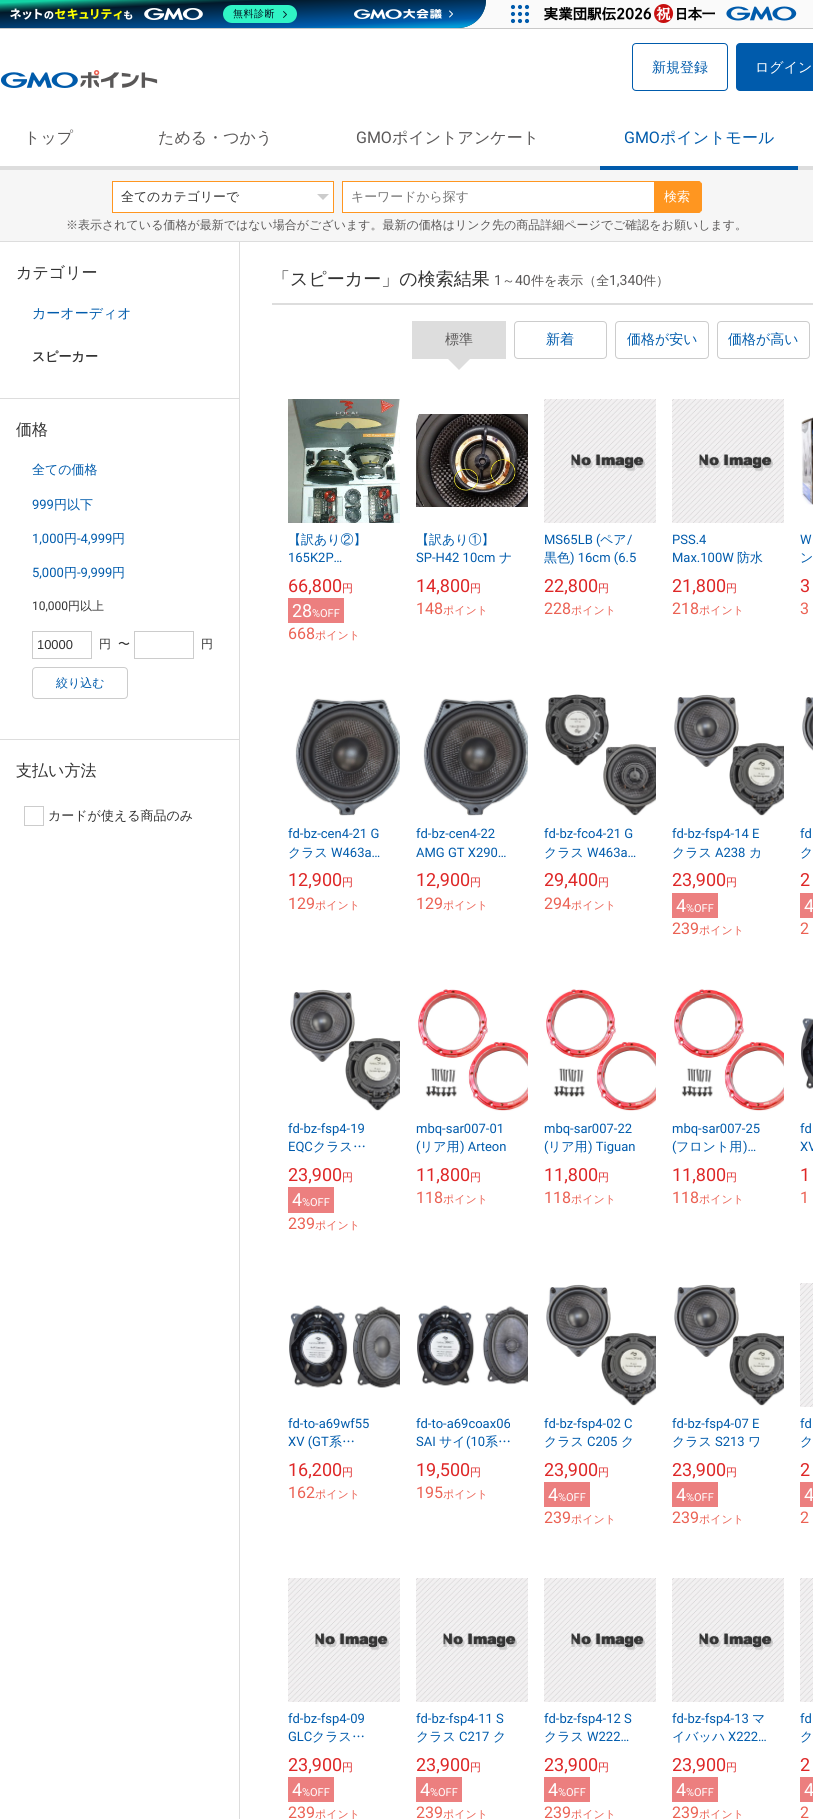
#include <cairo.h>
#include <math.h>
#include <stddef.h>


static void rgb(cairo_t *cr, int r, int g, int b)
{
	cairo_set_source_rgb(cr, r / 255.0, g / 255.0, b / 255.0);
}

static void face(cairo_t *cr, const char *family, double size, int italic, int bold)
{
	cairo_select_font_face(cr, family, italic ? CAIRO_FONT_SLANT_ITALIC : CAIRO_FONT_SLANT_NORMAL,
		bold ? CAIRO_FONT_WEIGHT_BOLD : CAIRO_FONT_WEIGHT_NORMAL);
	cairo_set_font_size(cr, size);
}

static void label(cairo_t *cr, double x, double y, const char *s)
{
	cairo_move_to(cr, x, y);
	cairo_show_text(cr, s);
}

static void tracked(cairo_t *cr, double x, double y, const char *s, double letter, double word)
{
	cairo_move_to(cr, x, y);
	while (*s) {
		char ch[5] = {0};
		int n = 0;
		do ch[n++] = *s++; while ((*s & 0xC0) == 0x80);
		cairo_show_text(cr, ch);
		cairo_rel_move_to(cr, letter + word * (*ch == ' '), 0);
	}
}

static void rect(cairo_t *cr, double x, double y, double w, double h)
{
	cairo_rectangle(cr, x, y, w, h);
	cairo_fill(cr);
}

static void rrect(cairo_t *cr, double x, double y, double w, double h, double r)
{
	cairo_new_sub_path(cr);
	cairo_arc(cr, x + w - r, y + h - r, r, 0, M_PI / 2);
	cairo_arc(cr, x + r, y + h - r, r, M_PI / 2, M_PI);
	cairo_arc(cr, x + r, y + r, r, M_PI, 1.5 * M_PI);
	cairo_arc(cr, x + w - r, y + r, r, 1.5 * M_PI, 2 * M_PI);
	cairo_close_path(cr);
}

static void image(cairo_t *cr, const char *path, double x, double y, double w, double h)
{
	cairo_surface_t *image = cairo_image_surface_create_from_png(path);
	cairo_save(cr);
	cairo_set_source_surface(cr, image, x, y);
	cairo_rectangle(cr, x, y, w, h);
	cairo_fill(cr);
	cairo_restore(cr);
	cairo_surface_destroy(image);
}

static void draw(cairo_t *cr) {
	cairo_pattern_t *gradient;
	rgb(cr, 255, 255, 255);
	cairo_paint(cr);
	rgb(cr, 250, 250, 250);
	rect(cr, 458, 0, 355, 28);
	rgb(cr, 200, 200, 200);
	rect(cr, 0, 28, 813, 1);
	gradient = cairo_pattern_create_linear(242, -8, 244, 36);
	cairo_pattern_add_color_stop_rgba(gradient, 0, 0.075, 0.831, 0.647, 1);
	cairo_pattern_add_color_stop_rgba(gradient, 0.33, 0.055, 0.451, 0.396, 1);
	cairo_pattern_add_color_stop_rgba(gradient, 0.78, 0.043, 0.302, 0.294, 1);
	cairo_set_source(cr, gradient);
	cairo_pattern_destroy(gradient);
	cairo_new_path(cr);
	cairo_move_to(cr, 0, 0);
	cairo_line_to(cr, 486, 0);
	cairo_curve_to(cr, 486, 15.5, 473.5, 28, 458, 28);
	cairo_line_to(cr, 0, 28);
	cairo_close_path(cr);
	cairo_fill(cr);
	gradient = cairo_pattern_create_linear(244, 36, 242, -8);
	cairo_pattern_add_color_stop_rgba(gradient, 0, 0.004, 0.612, 0.851, 1);
	cairo_pattern_add_color_stop_rgba(gradient, 0.16, 0, 0.357, 0.675, 1);
	cairo_pattern_add_color_stop_rgba(gradient, 0.78, 0.008, 0.098, 0.165, 1);
	cairo_pattern_add_color_stop_rgba(gradient, 1, 0.008, 0.098, 0.165, 0);
	cairo_set_source(cr, gradient);
	cairo_pattern_destroy(gradient);
	cairo_new_path(cr);
	cairo_move_to(cr, 0, 0);
	cairo_line_to(cr, 486, 0);
	cairo_curve_to(cr, 486, 15.5, 473.5, 28, 458, 28);
	cairo_line_to(cr, 0, 28);
	cairo_close_path(cr);
	cairo_fill(cr);
	image(cr, "image0.png", 10, 8, 193, 12);
	rgb(cr, 48, 244, 197);
	rrect(cr, 223, 5, 74, 18, 9);
	cairo_fill(cr);
	face(cr, "WenQuanYi Zen Hei Medium", 10, 0, 0);
	rgb(cr, 2, 23, 37);
	tracked(cr, 233, 17, "無料診断", 0.5, 0);
	cairo_new_path(cr);
	cairo_move_to(cr, 283.5, 11.5);
	cairo_line_to(cr, 286.5, 14.5);
	cairo_line_to(cr, 283.5, 17.5);
	cairo_set_line_width(cr, 0.9);
	cairo_set_line_cap(cr, CAIRO_LINE_CAP_ROUND);
	cairo_set_line_join(cr, CAIRO_LINE_JOIN_ROUND);
	cairo_stroke(cr);
	image(cr, "image1.png", 354, 9, 99, 10);
	image(cr, "image2.png", 510, 4, 20, 20);
	image(cr, "image3.png", 544, 4, 253, 19);
	rrect(cr, 632.5, 43.5, 95, 47, 3.5);
	rgb(cr, 0, 91, 172);
	cairo_set_line_width(cr, 1);
	cairo_set_line_cap(cr, CAIRO_LINE_CAP_BUTT);
	cairo_set_line_join(cr, CAIRO_LINE_JOIN_MITER);
	cairo_stroke(cr);
	face(cr, "WenQuanYi Zen Hei Medium", 14, 0, 0);
	label(cr, 652, 72, "新規登録");
	rrect(cr, 736, 43, 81, 48, 4);
	cairo_fill(cr);
	rgb(cr, 255, 255, 255);
	label(cr, 755, 72, "ログイン");
	image(cr, "image4.png", 0, 70, 158, 18);
	face(cr, "WenQuanYi Zen Hei Medium", 16, 0, 0);
	rgb(cr, 90, 88, 88);
	label(cr, 24, 143, "トップ");
	label(cr, 158, 143, "ためる・つかう");
	face(cr, "Roboto", 16, 0, 0);
	label(cr, 356, 143, "GMO");
	face(cr, "WenQuanYi Zen Hei Medium", 16, 0, 0);
	label(cr, 392, 143, "ポイントアンケート");
	face(cr, "Roboto", 16, 0, 0);
	rgb(cr, 0, 91, 172);
	label(cr, 624, 143, "GMO");
	face(cr, "WenQuanYi Zen Hei Medium", 16, 0, 0);
	label(cr, 660, 143, "ポイントモール");
	rgb(cr, 221, 221, 221);
	rect(cr, 0, 166, 813, 4);
	rgb(cr, 0, 91, 172);
	rect(cr, 600, 166, 198, 4);
	rgb(cr, 246, 246, 246);
	rect(cr, 0, 170, 813, 71);
	rgb(cr, 221, 221, 221);
	rect(cr, 0, 241, 813, 1);
	cairo_rectangle(cr, 112.5, 181.5, 221, 31);
	rgb(cr, 255, 150, 32);
	cairo_stroke(cr);
	rgb(cr, 255, 255, 255);
	rect(cr, 113, 182, 220, 30);
	face(cr, "WenQuanYi Zen Hei Medium", 12.9, 0, 0);
	rgb(cr, 50, 50, 50);
	label(cr, 121, 201, "全てのカテゴリーで");
	rgb(cr, 204, 204, 204);
	cairo_new_path(cr);
	cairo_move_to(cr, 317, 194);
	cairo_line_to(cr, 329, 194);
	cairo_line_to(cr, 323, 200);
	cairo_close_path(cr);
	cairo_fill(cr);
	cairo_new_path(cr);
	cairo_move_to(cr, 342.5, 181.5);
	cairo_line_to(cr, 698, 181.5);
	cairo_curve_to(cr, 700, 181.5, 701.5, 183, 701.5, 185);
	cairo_line_to(cr, 701.5, 209);
	cairo_curve_to(cr, 701.5, 211, 700, 212.5, 698, 212.5);
	cairo_line_to(cr, 342.5, 212.5);
	cairo_close_path(cr);
	rgb(cr, 255, 150, 32);
	cairo_stroke(cr);
	rgb(cr, 255, 255, 255);
	rect(cr, 343, 182, 358, 30);
	rgb(cr, 117, 117, 117);
	label(cr, 351, 201, "キーワードから探す");
	rgb(cr, 255, 150, 32);
	cairo_new_path(cr);
	cairo_move_to(cr, 654, 181);
	cairo_line_to(cr, 698, 181);
	cairo_curve_to(cr, 700, 181, 702, 183, 702, 185);
	cairo_line_to(cr, 702, 209);
	cairo_curve_to(cr, 702, 211, 700, 213, 698, 213);
	cairo_line_to(cr, 654, 213);
	cairo_close_path(cr);
	cairo_fill(cr);
	face(cr, "WenQuanYi Zen Hei Medium", 13, 0, 0);
	rgb(cr, 255, 255, 255);
	label(cr, 664, 201, "検索");
	face(cr, "WenQuanYi Zen Hei Medium", 12, 0, 0);
	rgb(cr, 90, 88, 88);
	label(cr, 66, 229, "※表示されている価格が最新ではない場合がございます。最新の価格はリンク先の商品詳細ページでご確認をお願いします。");
	rgb(cr, 221, 221, 221);
	rect(cr, 239, 242, 1, 1577);
	rect(cr, 0, 398, 239, 1);
	face(cr, "WenQuanYi Zen Hei Medium", 16, 0, 0);
	rgb(cr, 50, 50, 50);
	label(cr, 16, 278, "カテゴリー");
	face(cr, "WenQuanYi Zen Hei Medium", 14, 0, 0);
	rgb(cr, 0, 91, 172);
	label(cr, 32, 318, "カーオーディオ");
	face(cr, "WenQuanYi Zen Hei", 13, 0, 1);
	rgb(cr, 50, 50, 50);
	label(cr, 32, 361, "スピーカー");
	rgb(cr, 221, 221, 221);
	rect(cr, 0, 739, 239, 1);
	face(cr, "WenQuanYi Zen Hei Medium", 16, 0, 0);
	rgb(cr, 50, 50, 50);
	label(cr, 16, 435, "価格");
	face(cr, "WenQuanYi Zen Hei Medium", 13, 0, 0);
	rgb(cr, 0, 91, 172);
	label(cr, 32, 474, "全ての価格");
	face(cr, "Roboto", 13, 0, 0);
	label(cr, 32, 509, "999");
	face(cr, "WenQuanYi Zen Hei Medium", 13, 0, 0);
	label(cr, 54, 509, "円以下");
	face(cr, "Roboto", 13, 0, 0);
	label(cr, 32, 543, "1,000");
	face(cr, "WenQuanYi Zen Hei Medium", 13, 0, 0);
	label(cr, 64, 543, "円");
	face(cr, "Roboto", 13, 0, 0);
	label(cr, 77, 543, "-4,999");
	face(cr, "WenQuanYi Zen Hei Medium", 13, 0, 0);
	label(cr, 112, 543, "円");
	face(cr, "Roboto", 13, 0, 0);
	label(cr, 32, 577, "5,000");
	face(cr, "WenQuanYi Zen Hei Medium", 13, 0, 0);
	label(cr, 64, 577, "円");
	face(cr, "Roboto", 13, 0, 0);
	label(cr, 77, 577, "-9,999");
	face(cr, "WenQuanYi Zen Hei Medium", 13, 0, 0);
	label(cr, 112, 577, "円");
	face(cr, "Roboto", 12, 0, 0);
	rgb(cr, 50, 50, 50);
	label(cr, 32, 610, "10,000");
	face(cr, "WenQuanYi Zen Hei Medium", 12, 0, 0);
	label(cr, 68, 610, "円以上");
	cairo_rectangle(cr, 32.5, 631.5, 59, 27);
	rgb(cr, 204, 204, 204);
	cairo_stroke(cr);
	face(cr, "Liberation Sans", 12.9, 0, 0);
	rgb(cr, 50, 50, 50);
	label(cr, 37, 649, "10000");
	face(cr, "WenQuanYi Zen Hei Medium", 12, 0, 0);
	label(cr, 99, 648, "円");
	label(cr, 118, 648, "〜");
	cairo_rectangle(cr, 134.5, 631.5, 59, 27);
	rgb(cr, 204, 204, 204);
	cairo_stroke(cr);
	rgb(cr, 50, 50, 50);
	label(cr, 201, 648, "円");
	rrect(cr, 32.5, 667.5, 95, 31, 3.5);
	rgb(cr, 204, 204, 204);
	cairo_stroke(cr);
	rgb(cr, 0, 91, 172);
	label(cr, 56, 687, "絞り込む");
	face(cr, "WenQuanYi Zen Hei Medium", 16, 0, 0);
	rgb(cr, 50, 50, 50);
	label(cr, 16, 776, "支払い方法");
	cairo_rectangle(cr, 24.5, 806.5, 19, 19);
	rgb(cr, 204, 204, 204);
	cairo_stroke(cr);
	face(cr, "WenQuanYi Zen Hei Medium", 13, 0, 0);
	rgb(cr, 50, 50, 50);
	label(cr, 48, 820, "カードが使える商品のみ");
	rgb(cr, 221, 221, 221);
	rect(cr, 272, 303, 541, 2);
	face(cr, "WenQuanYi Zen Hei Medium", 18, 0, 0);
	rgb(cr, 50, 50, 50);
	label(cr, 272, 285, "「スピーカー」の検索結果");
	face(cr, "Roboto", 14, 0, 0);
	rgb(cr, 90, 88, 88);
	label(cr, 494, 285, "1");
	face(cr, "WenQuanYi Zen Hei Medium", 13, 0, 0);
	label(cr, 502, 285, "～");
	face(cr, "Roboto", 14, 0, 0);
	label(cr, 515, 285, "40");
	face(cr, "WenQuanYi Zen Hei Medium", 13, 0, 0);
	label(cr, 531, 285, "件を表示（全");
	face(cr, "Roboto", 14, 0, 0);
	label(cr, 609, 285, "1,340");
	face(cr, "WenQuanYi Zen Hei Medium", 13, 0, 0);
	label(cr, 643, 285, "件）");
	rgb(cr, 221, 221, 221);
	rect(cr, 412, 321, 94, 38);
	face(cr, "WenQuanYi Zen Hei Medium", 14, 0, 0);
	rgb(cr, 90, 88, 88);
	label(cr, 445, 344, "標準");
	rgb(cr, 221, 221, 221);
	cairo_new_path(cr);
	cairo_move_to(cr, 447, 358);
	cairo_line_to(cr, 471, 358);
	cairo_line_to(cr, 459, 370);
	cairo_close_path(cr);
	cairo_fill(cr);
	rrect(cr, 514.5, 321.5, 92, 37, 3.5);
	rgb(cr, 204, 204, 204);
	cairo_stroke(cr);
	rgb(cr, 0, 91, 172);
	label(cr, 546, 344, "新着");
	rrect(cr, 615.5, 321.5, 93, 37, 3.5);
	rgb(cr, 204, 204, 204);
	cairo_stroke(cr);
	rgb(cr, 0, 91, 172);
	label(cr, 627, 344, "価格が安い");
	rrect(cr, 717.5, 321.5, 92, 37, 3.5);
	rgb(cr, 204, 204, 204);
	cairo_stroke(cr);
	rgb(cr, 0, 91, 172);
	label(cr, 728, 344, "価格が高い");
	image(cr, "image5.png", 288, 399, 112, 124);
	face(cr, "WenQuanYi Zen Hei Medium", 13, 0, 0);
	label(cr, 288, 544, "【訳あり②】");
	face(cr, "Roboto", 13, 0, 0);
	label(cr, 288, 562, "165K2P…");
	face(cr, "Roboto", 18, 0, 0);
	rgb(cr, 222, 39, 39);
	label(cr, 288, 592, "66,800");
	face(cr, "WenQuanYi Zen Hei Medium", 11, 0, 0);
	label(cr, 342, 592, "円");
	rgb(cr, 236, 127, 127);
	rect(cr, 288, 598, 56, 25);
	face(cr, "Roboto", 18, 0, 0);
	rgb(cr, 255, 255, 255);
	label(cr, 292, 617, "28");
	face(cr, "Roboto", 11, 0, 0);
	label(cr, 312, 617, "%OFF");
	face(cr, "Roboto", 16, 0, 0);
	rgb(cr, 235, 97, 83);
	label(cr, 288, 639, "668");
	face(cr, "WenQuanYi Zen Hei Medium", 11, 0, 0);
	label(cr, 315, 639, "ポイント");
	image(cr, "image6.png", 416, 414, 112, 93);
	face(cr, "WenQuanYi Zen Hei Medium", 13, 0, 0);
	rgb(cr, 0, 91, 172);
	label(cr, 416, 544, "【訳あり①】");
	face(cr, "Roboto", 13, 0, 0);
	label(cr, 416, 562, "SP-H42 10cm");
	face(cr, "WenQuanYi Zen Hei Medium", 13, 0, 0);
	label(cr, 499, 562, "ナ");
	face(cr, "Roboto", 18, 0, 0);
	rgb(cr, 222, 39, 39);
	label(cr, 416, 592, "14,800");
	face(cr, "WenQuanYi Zen Hei Medium", 11, 0, 0);
	label(cr, 470, 592, "円");
	face(cr, "Roboto", 16, 0, 0);
	rgb(cr, 235, 97, 83);
	label(cr, 416, 614, "148");
	face(cr, "WenQuanYi Zen Hei Medium", 11, 0, 0);
	label(cr, 443, 614, "ポイント");
	image(cr, "image7.png", 544, 399, 112, 124);
	face(cr, "Roboto", 13, 0, 0);
	rgb(cr, 0, 91, 172);
	label(cr, 544, 544, "MS65LB (");
	face(cr, "WenQuanYi Zen Hei Medium", 13, 0, 0);
	label(cr, 600, 544, "ペア");
	face(cr, "Roboto", 13, 0, 0);
	label(cr, 627, 544, "/");
	face(cr, "WenQuanYi Zen Hei Medium", 13, 0, 0);
	label(cr, 544, 562, "黒色");
	face(cr, "Roboto", 13, 0, 0);
	label(cr, 570, 562, ") 16cm (6.5");
	face(cr, "Roboto", 18, 0, 0);
	rgb(cr, 222, 39, 39);
	label(cr, 544, 592, "22,800");
	face(cr, "WenQuanYi Zen Hei Medium", 11, 0, 0);
	label(cr, 598, 592, "円");
	face(cr, "Roboto", 16, 0, 0);
	rgb(cr, 235, 97, 83);
	label(cr, 544, 614, "228");
	face(cr, "WenQuanYi Zen Hei Medium", 11, 0, 0);
	label(cr, 571, 614, "ポイント");
	image(cr, "image8.png", 672, 399, 112, 124);
	face(cr, "Roboto", 13, 0, 0);
	rgb(cr, 0, 91, 172);
	label(cr, 672, 544, "PSS.4");
	label(cr, 672, 562, "Max.100W");
	face(cr, "WenQuanYi Zen Hei Medium", 13, 0, 0);
	label(cr, 737, 562, "防水");
	face(cr, "Roboto", 18, 0, 0);
	rgb(cr, 222, 39, 39);
	label(cr, 672, 592, "21,800");
	face(cr, "WenQuanYi Zen Hei Medium", 11, 0, 0);
	label(cr, 726, 592, "円");
	face(cr, "Roboto", 16, 0, 0);
	rgb(cr, 235, 97, 83);
	label(cr, 672, 614, "218");
	face(cr, "WenQuanYi Zen Hei Medium", 11, 0, 0);
	label(cr, 699, 614, "ポイント");
	image(cr, "image9.png", 801, 417, 12, 88);
	face(cr, "Roboto", 13, 0, 0);
	rgb(cr, 0, 91, 172);
	label(cr, 800, 544, "W");
	face(cr, "WenQuanYi Zen Hei Medium", 13, 0, 0);
	label(cr, 800, 562, "ン");
	face(cr, "Roboto", 18, 0, 0);
	rgb(cr, 222, 39, 39);
	label(cr, 800, 592, "3");
	face(cr, "Roboto", 16, 0, 0);
	rgb(cr, 235, 97, 83);
	label(cr, 800, 614, "3");
	image(cr, "image10.png", 295, 698, 105, 118);
	face(cr, "Roboto", 13, 0, 0);
	rgb(cr, 0, 91, 172);
	label(cr, 288, 838, "fd-bz-cen4-21 G");
	face(cr, "WenQuanYi Zen Hei Medium", 13, 0, 0);
	label(cr, 288, 857, "クラス");
	face(cr, "Roboto", 13, 0, 0);
	label(cr, 331, 857, "W463a…");
	face(cr, "Roboto", 18, 0, 0);
	rgb(cr, 222, 39, 39);
	label(cr, 288, 886, "12,900");
	face(cr, "WenQuanYi Zen Hei Medium", 11, 0, 0);
	label(cr, 342, 886, "円");
	face(cr, "Roboto", 16, 0, 0);
	rgb(cr, 235, 97, 83);
	label(cr, 288, 909, "129");
	face(cr, "WenQuanYi Zen Hei Medium", 11, 0, 0);
	label(cr, 315, 909, "ポイント");
	image(cr, "image11.png", 423, 698, 105, 118);
	face(cr, "Roboto", 13, 0, 0);
	rgb(cr, 0, 91, 172);
	label(cr, 416, 838, "fd-bz-cen4-22");
	label(cr, 416, 857, "AMG GT X290…");
	face(cr, "Roboto", 18, 0, 0);
	rgb(cr, 222, 39, 39);
	label(cr, 416, 886, "12,900");
	face(cr, "WenQuanYi Zen Hei Medium", 11, 0, 0);
	label(cr, 470, 886, "円");
	face(cr, "Roboto", 16, 0, 0);
	rgb(cr, 235, 97, 83);
	label(cr, 416, 909, "129");
	face(cr, "WenQuanYi Zen Hei Medium", 11, 0, 0);
	label(cr, 443, 909, "ポイント");
	image(cr, "image12.png", 545, 694, 111, 122);
	face(cr, "Roboto", 13, 0, 0);
	rgb(cr, 0, 91, 172);
	label(cr, 544, 838, "fd-bz-fco4-21 G");
	face(cr, "WenQuanYi Zen Hei Medium", 13, 0, 0);
	label(cr, 544, 857, "クラス");
	face(cr, "Roboto", 13, 0, 0);
	label(cr, 587, 857, "W463a…");
	face(cr, "Roboto", 18, 0, 0);
	rgb(cr, 222, 39, 39);
	label(cr, 544, 886, "29,400");
	face(cr, "WenQuanYi Zen Hei Medium", 11, 0, 0);
	label(cr, 598, 886, "円");
	face(cr, "Roboto", 16, 0, 0);
	rgb(cr, 235, 97, 83);
	label(cr, 544, 909, "294");
	face(cr, "WenQuanYi Zen Hei Medium", 11, 0, 0);
	label(cr, 571, 909, "ポイント");
	image(cr, "image13.png", 674, 694, 110, 122);
	face(cr, "Roboto", 13, 0, 0);
	rgb(cr, 0, 91, 172);
	label(cr, 672, 838, "fd-bz-fsp4-14 E");
	face(cr, "WenQuanYi Zen Hei Medium", 13, 0, 0);
	label(cr, 672, 857, "クラス");
	face(cr, "Roboto", 13, 0, 0);
	label(cr, 715, 857, "A238");
	face(cr, "WenQuanYi Zen Hei Medium", 13, 0, 0);
	label(cr, 749, 857, "カ");
	face(cr, "Roboto", 18, 0, 0);
	rgb(cr, 222, 39, 39);
	label(cr, 672, 886, "23,900");
	face(cr, "WenQuanYi Zen Hei Medium", 11, 0, 0);
	label(cr, 726, 886, "円");
	rgb(cr, 236, 127, 127);
	rect(cr, 672, 893, 46, 25);
	face(cr, "Roboto", 18, 0, 0);
	rgb(cr, 255, 255, 255);
	label(cr, 676, 912, "4");
	face(cr, "Roboto", 11, 0, 0);
	label(cr, 686, 912, "%OFF");
	face(cr, "Roboto", 16, 0, 0);
	rgb(cr, 235, 97, 83);
	label(cr, 672, 934, "239");
	face(cr, "WenQuanYi Zen Hei Medium", 11, 0, 0);
	label(cr, 699, 934, "ポイント");
	image(cr, "image14.png", 802, 697, 11, 54);
	face(cr, "Roboto", 13, 0, 0);
	rgb(cr, 0, 91, 172);
	label(cr, 800, 838, "fd");
	face(cr, "WenQuanYi Zen Hei Medium", 13, 0, 0);
	label(cr, 800, 857, "ク");
	face(cr, "Roboto", 18, 0, 0);
	rgb(cr, 222, 39, 39);
	label(cr, 800, 886, "2");
	rgb(cr, 236, 127, 127);
	rect(cr, 800, 893, 13, 25);
	rgb(cr, 255, 255, 255);
	label(cr, 804, 912, "4");
	face(cr, "Roboto", 16, 0, 0);
	rgb(cr, 235, 97, 83);
	label(cr, 800, 934, "2");
	image(cr, "image13.png", 290, 989, 110, 122);
	face(cr, "Roboto", 13, 0, 0);
	rgb(cr, 0, 91, 172);
	label(cr, 288, 1133, "fd-bz-fsp4-19");
	label(cr, 288, 1151, "EQC");
	face(cr, "WenQuanYi Zen Hei Medium", 13, 0, 0);
	label(cr, 313, 1151, "クラス…");
	face(cr, "Roboto", 18, 0, 0);
	rgb(cr, 222, 39, 39);
	label(cr, 288, 1181, "23,900");
	face(cr, "WenQuanYi Zen Hei Medium", 11, 0, 0);
	label(cr, 342, 1181, "円");
	rgb(cr, 236, 127, 127);
	rect(cr, 288, 1187, 46, 26);
	face(cr, "Roboto", 18, 0, 0);
	rgb(cr, 255, 255, 255);
	label(cr, 292, 1206, "4");
	face(cr, "Roboto", 11, 0, 0);
	label(cr, 302, 1206, "%OFF");
	face(cr, "Roboto", 16, 0, 0);
	rgb(cr, 235, 97, 83);
	label(cr, 288, 1229, "239");
	face(cr, "WenQuanYi Zen Hei Medium", 11, 0, 0);
	label(cr, 315, 1229, "ポイント");
	image(cr, "image15.png", 418, 989, 110, 122);
	face(cr, "Roboto", 13, 0, 0);
	rgb(cr, 0, 91, 172);
	label(cr, 416, 1133, "mbq-sar007-01");
	label(cr, 416, 1151, "(");
	face(cr, "WenQuanYi Zen Hei Medium", 13, 0, 0);
	label(cr, 420, 1151, "リア用");
	face(cr, "Roboto", 13, 0, 0);
	label(cr, 460, 1151, ") Arteon");
	face(cr, "Roboto", 18, 0, 0);
	rgb(cr, 222, 39, 39);
	label(cr, 416, 1181, "11,800");
	face(cr, "WenQuanYi Zen Hei Medium", 11, 0, 0);
	label(cr, 470, 1181, "円");
	face(cr, "Roboto", 16, 0, 0);
	rgb(cr, 235, 97, 83);
	label(cr, 416, 1203, "118");
	face(cr, "WenQuanYi Zen Hei Medium", 11, 0, 0);
	label(cr, 443, 1203, "ポイント");
	image(cr, "image16.png", 546, 989, 110, 122);
	face(cr, "Roboto", 13, 0, 0);
	rgb(cr, 0, 91, 172);
	label(cr, 544, 1133, "mbq-sar007-22");
	label(cr, 544, 1151, "(");
	face(cr, "WenQuanYi Zen Hei Medium", 13, 0, 0);
	label(cr, 548, 1151, "リア用");
	face(cr, "Roboto", 13, 0, 0);
	label(cr, 588, 1151, ") Tiguan");
	face(cr, "Roboto", 18, 0, 0);
	rgb(cr, 222, 39, 39);
	label(cr, 544, 1181, "11,800");
	face(cr, "WenQuanYi Zen Hei Medium", 11, 0, 0);
	label(cr, 598, 1181, "円");
	face(cr, "Roboto", 16, 0, 0);
	rgb(cr, 235, 97, 83);
	label(cr, 544, 1203, "118");
	face(cr, "WenQuanYi Zen Hei Medium", 11, 0, 0);
	label(cr, 571, 1203, "ポイント");
	image(cr, "image16.png", 674, 989, 110, 122);
	face(cr, "Roboto", 13, 0, 0);
	rgb(cr, 0, 91, 172);
	label(cr, 672, 1133, "mbq-sar007-25");
	label(cr, 672, 1151, "(");
	face(cr, "WenQuanYi Zen Hei Medium", 13, 0, 0);
	label(cr, 676, 1151, "フロント用");
	face(cr, "Roboto", 13, 0, 0);
	label(cr, 743, 1151, ")…");
	face(cr, "Roboto", 18, 0, 0);
	rgb(cr, 222, 39, 39);
	label(cr, 672, 1181, "11,800");
	face(cr, "WenQuanYi Zen Hei Medium", 11, 0, 0);
	label(cr, 726, 1181, "円");
	face(cr, "Roboto", 16, 0, 0);
	rgb(cr, 235, 97, 83);
	label(cr, 672, 1203, "118");
	face(cr, "WenQuanYi Zen Hei Medium", 11, 0, 0);
	label(cr, 699, 1203, "ポイント");
	image(cr, "image17.png", 801, 1018, 12, 71);
	face(cr, "Roboto", 13, 0, 0);
	rgb(cr, 0, 91, 172);
	label(cr, 800, 1133, "fd");
	label(cr, 800, 1151, "XV");
	face(cr, "Roboto", 18, 0, 0);
	rgb(cr, 222, 39, 39);
	label(cr, 800, 1181, "1");
	face(cr, "Roboto", 16, 0, 0);
	rgb(cr, 235, 97, 83);
	label(cr, 800, 1203, "1");
	image(cr, "image18.png", 289, 1305, 111, 83);
	face(cr, "Roboto", 13, 0, 0);
	rgb(cr, 0, 91, 172);
	label(cr, 288, 1428, "fd-to-a69wf55");
	label(cr, 288, 1446, "XV (GT");
	face(cr, "WenQuanYi Zen Hei Medium", 13, 0, 0);
	label(cr, 329, 1446, "系…");
	face(cr, "Roboto", 18, 0, 0);
	rgb(cr, 222, 39, 39);
	label(cr, 288, 1476, "16,200");
	face(cr, "WenQuanYi Zen Hei Medium", 11, 0, 0);
	label(cr, 342, 1476, "円");
	face(cr, "Roboto", 16, 0, 0);
	rgb(cr, 235, 97, 83);
	label(cr, 288, 1498, "162");
	face(cr, "WenQuanYi Zen Hei Medium", 11, 0, 0);
	label(cr, 315, 1498, "ポイント");
	image(cr, "image19.png", 417, 1305, 111, 81);
	face(cr, "Roboto", 13, 0, 0);
	rgb(cr, 0, 91, 172);
	label(cr, 416, 1428, "fd-to-a69coax06");
	label(cr, 416, 1446, "SAI");
	face(cr, "WenQuanYi Zen Hei Medium", 13, 0, 0);
	label(cr, 439, 1446, "サイ");
	face(cr, "Roboto", 13, 0, 0);
	label(cr, 466, 1446, "(10");
	face(cr, "WenQuanYi Zen Hei Medium", 13, 0, 0);
	label(cr, 485, 1446, "系…");
	face(cr, "Roboto", 18, 0, 0);
	rgb(cr, 222, 39, 39);
	label(cr, 416, 1476, "19,500");
	face(cr, "WenQuanYi Zen Hei Medium", 11, 0, 0);
	label(cr, 470, 1476, "円");
	face(cr, "Roboto", 16, 0, 0);
	rgb(cr, 235, 97, 83);
	label(cr, 416, 1498, "195");
	face(cr, "WenQuanYi Zen Hei Medium", 11, 0, 0);
	label(cr, 443, 1498, "ポイント");
	image(cr, "image20.png", 546, 1284, 110, 122);
	face(cr, "Roboto", 13, 0, 0);
	rgb(cr, 0, 91, 172);
	label(cr, 544, 1428, "fd-bz-fsp4-02 C");
	face(cr, "WenQuanYi Zen Hei Medium", 13, 0, 0);
	label(cr, 544, 1446, "クラス");
	face(cr, "Roboto", 13, 0, 0);
	label(cr, 587, 1446, "C205");
	face(cr, "WenQuanYi Zen Hei Medium", 13, 0, 0);
	label(cr, 621, 1446, "ク");
	face(cr, "Roboto", 18, 0, 0);
	rgb(cr, 222, 39, 39);
	label(cr, 544, 1476, "23,900");
	face(cr, "WenQuanYi Zen Hei Medium", 11, 0, 0);
	label(cr, 598, 1476, "円");
	rgb(cr, 236, 127, 127);
	rect(cr, 544, 1482, 46, 25);
	face(cr, "Roboto", 18, 0, 0);
	rgb(cr, 255, 255, 255);
	label(cr, 548, 1501, "4");
	face(cr, "Roboto", 11, 0, 0);
	label(cr, 558, 1501, "%OFF");
	face(cr, "Roboto", 16, 0, 0);
	rgb(cr, 235, 97, 83);
	label(cr, 544, 1523, "239");
	face(cr, "WenQuanYi Zen Hei Medium", 11, 0, 0);
	label(cr, 571, 1523, "ポイント");
	image(cr, "image13.png", 674, 1284, 110, 122);
	face(cr, "Roboto", 13, 0, 0);
	rgb(cr, 0, 91, 172);
	label(cr, 672, 1428, "fd-bz-fsp4-07 E");
	face(cr, "WenQuanYi Zen Hei Medium", 13, 0, 0);
	label(cr, 672, 1446, "クラス");
	face(cr, "Roboto", 13, 0, 0);
	label(cr, 715, 1446, "S213");
	face(cr, "WenQuanYi Zen Hei Medium", 13, 0, 0);
	label(cr, 748, 1446, "ワ");
	face(cr, "Roboto", 18, 0, 0);
	rgb(cr, 222, 39, 39);
	label(cr, 672, 1476, "23,900");
	face(cr, "WenQuanYi Zen Hei Medium", 11, 0, 0);
	label(cr, 726, 1476, "円");
	rgb(cr, 236, 127, 127);
	rect(cr, 672, 1482, 46, 25);
	face(cr, "Roboto", 18, 0, 0);
	rgb(cr, 255, 255, 255);
	label(cr, 676, 1501, "4");
	face(cr, "Roboto", 11, 0, 0);
	label(cr, 686, 1501, "%OFF");
	face(cr, "Roboto", 16, 0, 0);
	rgb(cr, 235, 97, 83);
	label(cr, 672, 1523, "239");
	face(cr, "WenQuanYi Zen Hei Medium", 11, 0, 0);
	label(cr, 699, 1523, "ポイント");
	image(cr, "image21.png", 800, 1283, 13, 124);
	face(cr, "Roboto", 13, 0, 0);
	rgb(cr, 0, 91, 172);
	label(cr, 800, 1428, "fd");
	face(cr, "WenQuanYi Zen Hei Medium", 13, 0, 0);
	label(cr, 800, 1446, "ク");
	face(cr, "Roboto", 18, 0, 0);
	rgb(cr, 222, 39, 39);
	label(cr, 800, 1476, "2");
	rgb(cr, 236, 127, 127);
	rect(cr, 800, 1482, 13, 25);
	rgb(cr, 255, 255, 255);
	label(cr, 804, 1501, "4");
	face(cr, "Roboto", 16, 0, 0);
	rgb(cr, 235, 97, 83);
	label(cr, 800, 1523, "2");
	image(cr, "image22.png", 288, 1578, 112, 124);
	face(cr, "Roboto", 13, 0, 0);
	rgb(cr, 0, 91, 172);
	label(cr, 288, 1723, "fd-bz-fsp4-09");
	label(cr, 288, 1741, "GLC");
	face(cr, "WenQuanYi Zen Hei Medium", 13, 0, 0);
	label(cr, 312, 1741, "クラス…");
	face(cr, "Roboto", 18, 0, 0);
	rgb(cr, 222, 39, 39);
	label(cr, 288, 1771, "23,900");
	face(cr, "WenQuanYi Zen Hei Medium", 11, 0, 0);
	label(cr, 342, 1771, "円");
	rgb(cr, 236, 127, 127);
	rect(cr, 288, 1777, 46, 25);
	face(cr, "Roboto", 18, 0, 0);
	rgb(cr, 255, 255, 255);
	label(cr, 292, 1796, "4");
	face(cr, "Roboto", 11, 0, 0);
	label(cr, 302, 1796, "%OFF");
	face(cr, "Roboto", 16, 0, 0);
	rgb(cr, 235, 97, 83);
	label(cr, 288, 1818, "239");
	face(cr, "WenQuanYi Zen Hei Medium", 11, 0, 0);
	label(cr, 315, 1818, "ポイント");
	image(cr, "image22.png", 416, 1578, 112, 124);
	face(cr, "Roboto", 13, 0, 0);
	rgb(cr, 0, 91, 172);
	label(cr, 416, 1723, "fd-bz-fsp4-11 S");
	face(cr, "WenQuanYi Zen Hei Medium", 13, 0, 0);
	label(cr, 416, 1741, "クラス");
	face(cr, "Roboto", 13, 0, 0);
	label(cr, 459, 1741, "C217");
	face(cr, "WenQuanYi Zen Hei Medium", 13, 0, 0);
	label(cr, 493, 1741, "ク");
	face(cr, "Roboto", 18, 0, 0);
	rgb(cr, 222, 39, 39);
	label(cr, 416, 1771, "23,900");
	face(cr, "WenQuanYi Zen Hei Medium", 11, 0, 0);
	label(cr, 470, 1771, "円");
	rgb(cr, 236, 127, 127);
	rect(cr, 416, 1777, 46, 25);
	face(cr, "Roboto", 18, 0, 0);
	rgb(cr, 255, 255, 255);
	label(cr, 420, 1796, "4");
	face(cr, "Roboto", 11, 0, 0);
	label(cr, 430, 1796, "%OFF");
	face(cr, "Roboto", 16, 0, 0);
	rgb(cr, 235, 97, 83);
	label(cr, 416, 1818, "239");
	face(cr, "WenQuanYi Zen Hei Medium", 11, 0, 0);
	label(cr, 443, 1818, "ポイント");
	image(cr, "image23.png", 544, 1578, 112, 124);
	face(cr, "Roboto", 13, 0, 0);
	rgb(cr, 0, 91, 172);
	label(cr, 544, 1723, "fd-bz-fsp4-12 S");
	face(cr, "WenQuanYi Zen Hei Medium", 13, 0, 0);
	label(cr, 544, 1741, "クラス");
	face(cr, "Roboto", 13, 0, 0);
	label(cr, 587, 1741, "W222…");
	face(cr, "Roboto", 18, 0, 0);
	rgb(cr, 222, 39, 39);
	label(cr, 544, 1771, "23,900");
	face(cr, "WenQuanYi Zen Hei Medium", 11, 0, 0);
	label(cr, 598, 1771, "円");
	rgb(cr, 236, 127, 127);
	rect(cr, 544, 1777, 46, 25);
	face(cr, "Roboto", 18, 0, 0);
	rgb(cr, 255, 255, 255);
	label(cr, 548, 1796, "4");
	face(cr, "Roboto", 11, 0, 0);
	label(cr, 558, 1796, "%OFF");
	face(cr, "Roboto", 16, 0, 0);
	rgb(cr, 235, 97, 83);
	label(cr, 544, 1818, "239");
	face(cr, "WenQuanYi Zen Hei Medium", 11, 0, 0);
	label(cr, 571, 1818, "ポイント");
	image(cr, "image22.png", 672, 1578, 112, 124);
	face(cr, "Roboto", 13, 0, 0);
	rgb(cr, 0, 91, 172);
	label(cr, 672, 1723, "fd-bz-fsp4-13");
	face(cr, "WenQuanYi Zen Hei Medium", 13, 0, 0);
	label(cr, 752, 1723, "マ");
	label(cr, 672, 1741, "イバッハ");
	face(cr, "Roboto", 13, 0, 0);
	label(cr, 728, 1741, "X222…");
	face(cr, "Roboto", 18, 0, 0);
	rgb(cr, 222, 39, 39);
	label(cr, 672, 1771, "23,900");
	face(cr, "WenQuanYi Zen Hei Medium", 11, 0, 0);
	label(cr, 726, 1771, "円");
	rgb(cr, 236, 127, 127);
	rect(cr, 672, 1777, 46, 25);
	face(cr, "Roboto", 18, 0, 0);
	rgb(cr, 255, 255, 255);
	label(cr, 676, 1796, "4");
	face(cr, "Roboto", 11, 0, 0);
	label(cr, 686, 1796, "%OFF");
	face(cr, "Roboto", 16, 0, 0);
	rgb(cr, 235, 97, 83);
	label(cr, 672, 1818, "239");
	face(cr, "WenQuanYi Zen Hei Medium", 11, 0, 0);
	label(cr, 699, 1818, "ポイント");
	image(cr, "image24.png", 800, 1578, 13, 124);
	face(cr, "Roboto", 13, 0, 0);
	rgb(cr, 0, 91, 172);
	label(cr, 800, 1723, "fd");
	face(cr, "WenQuanYi Zen Hei Medium", 13, 0, 0);
	label(cr, 800, 1741, "ク");
	face(cr, "Roboto", 18, 0, 0);
	rgb(cr, 222, 39, 39);
	label(cr, 800, 1771, "2");
	rgb(cr, 236, 127, 127);
	rect(cr, 800, 1777, 13, 25);
	rgb(cr, 255, 255, 255);
	label(cr, 804, 1796, "4");
	face(cr, "Roboto", 16, 0, 0);
	rgb(cr, 235, 97, 83);
	label(cr, 800, 1818, "2");
}

int main(void) {
	cairo_surface_t *surface = cairo_image_surface_create(CAIRO_FORMAT_RGB24, 813, 1819);
	cairo_t *cr = cairo_create(surface);
	cairo_font_options_t *options = cairo_font_options_create();
	cairo_font_options_set_hint_metrics(options, CAIRO_HINT_METRICS_OFF);
	cairo_font_options_set_hint_style(options, CAIRO_HINT_STYLE_NONE);
	cairo_set_font_options(cr, options);
	cairo_set_miter_limit(cr, 4);
	draw(cr);
	cairo_surface_write_to_png(surface, "render.png");
	cairo_font_options_destroy(options);
	cairo_destroy(cr);
	cairo_surface_destroy(surface);
	return 0;
}
